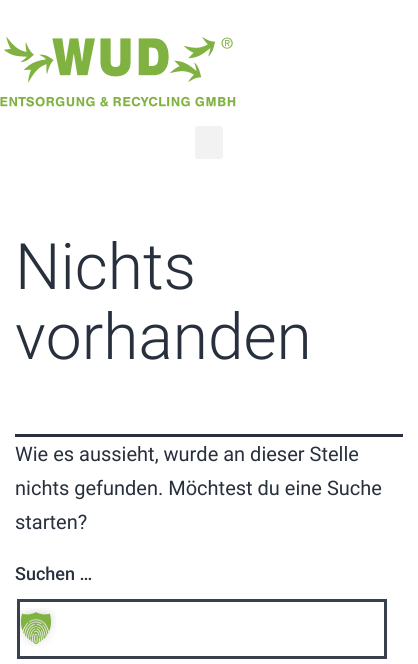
#include <cairo.h>
#include <math.h>
#include <stddef.h>


static void rgb(cairo_t *cr, int r, int g, int b)
{
	cairo_set_source_rgb(cr, r / 255.0, g / 255.0, b / 255.0);
}

static void face(cairo_t *cr, const char *family, double size, int italic, int bold)
{
	cairo_select_font_face(cr, family, italic ? CAIRO_FONT_SLANT_ITALIC : CAIRO_FONT_SLANT_NORMAL,
		bold ? CAIRO_FONT_WEIGHT_BOLD : CAIRO_FONT_WEIGHT_NORMAL);
	cairo_set_font_size(cr, size);
}

static void label(cairo_t *cr, double x, double y, const char *s)
{
	cairo_move_to(cr, x, y);
	cairo_show_text(cr, s);
}

static void rect(cairo_t *cr, double x, double y, double w, double h)
{
	cairo_rectangle(cr, x, y, w, h);
	cairo_fill(cr);
}

static void rrect(cairo_t *cr, double x, double y, double w, double h, double r)
{
	cairo_new_sub_path(cr);
	cairo_arc(cr, x + w - r, y + h - r, r, 0, M_PI / 2);
	cairo_arc(cr, x + r, y + h - r, r, M_PI / 2, M_PI);
	cairo_arc(cr, x + r, y + r, r, M_PI, 1.5 * M_PI);
	cairo_arc(cr, x + w - r, y + r, r, 1.5 * M_PI, 2 * M_PI);
	cairo_close_path(cr);
}

static void image(cairo_t *cr, const char *path, double x, double y, double w, double h)
{
	cairo_surface_t *image = cairo_image_surface_create_from_png(path);
	cairo_save(cr);
	cairo_set_source_surface(cr, image, x, y);
	cairo_rectangle(cr, x, y, w, h);
	cairo_fill(cr);
	cairo_restore(cr);
	cairo_surface_destroy(image);
}

static void draw(cairo_t *cr) {
	rgb(cr, 255, 255, 255);
	cairo_paint(cr);
	image(cr, "image0.png", 0, 36, 236, 71);
	rgb(cr, 242, 242, 242);
	rrect(cr, 195, 126, 28, 33, 3);
	cairo_fill(cr);
	rgb(cr, 40, 48, 61);
	rect(cr, 15, 434, 388, 3);
	face(cr, "Roboto Light", 64, 0, 0);
	label(cr, 15, 289, "Nichts");
	label(cr, 15, 359, "vorhanden");
	face(cr, "Roboto", 20, 0, 0);
	label(cr, 15, 461, "Wie es aussieht, wurde an dieser Stelle");
	label(cr, 15, 495, "nichts gefunden. Möchtest du eine Suche");
	label(cr, 15, 529, "starten?");
	face(cr, "Roboto Medium", 18, 0, 0);
	label(cr, 15, 580, "Suchen …");
	cairo_rectangle(cr, 18.5, 600.5, 367, 57);
	rgb(cr, 57, 65, 77);
	cairo_set_line_width(cr, 3);
	cairo_stroke(cr);
	image(cr, "image1.png", 16, 608, 40, 38);
}

int main(void) {
	cairo_surface_t *surface = cairo_image_surface_create(CAIRO_FORMAT_RGB24, 418, 664);
	cairo_t *cr = cairo_create(surface);
	cairo_font_options_t *options = cairo_font_options_create();
	cairo_font_options_set_hint_metrics(options, CAIRO_HINT_METRICS_OFF);
	cairo_font_options_set_hint_style(options, CAIRO_HINT_STYLE_NONE);
	cairo_set_font_options(cr, options);
	cairo_set_miter_limit(cr, 4);
	draw(cr);
	cairo_surface_write_to_png(surface, "render.png");
	cairo_font_options_destroy(options);
	cairo_destroy(cr);
	cairo_surface_destroy(surface);
	return 0;
}
